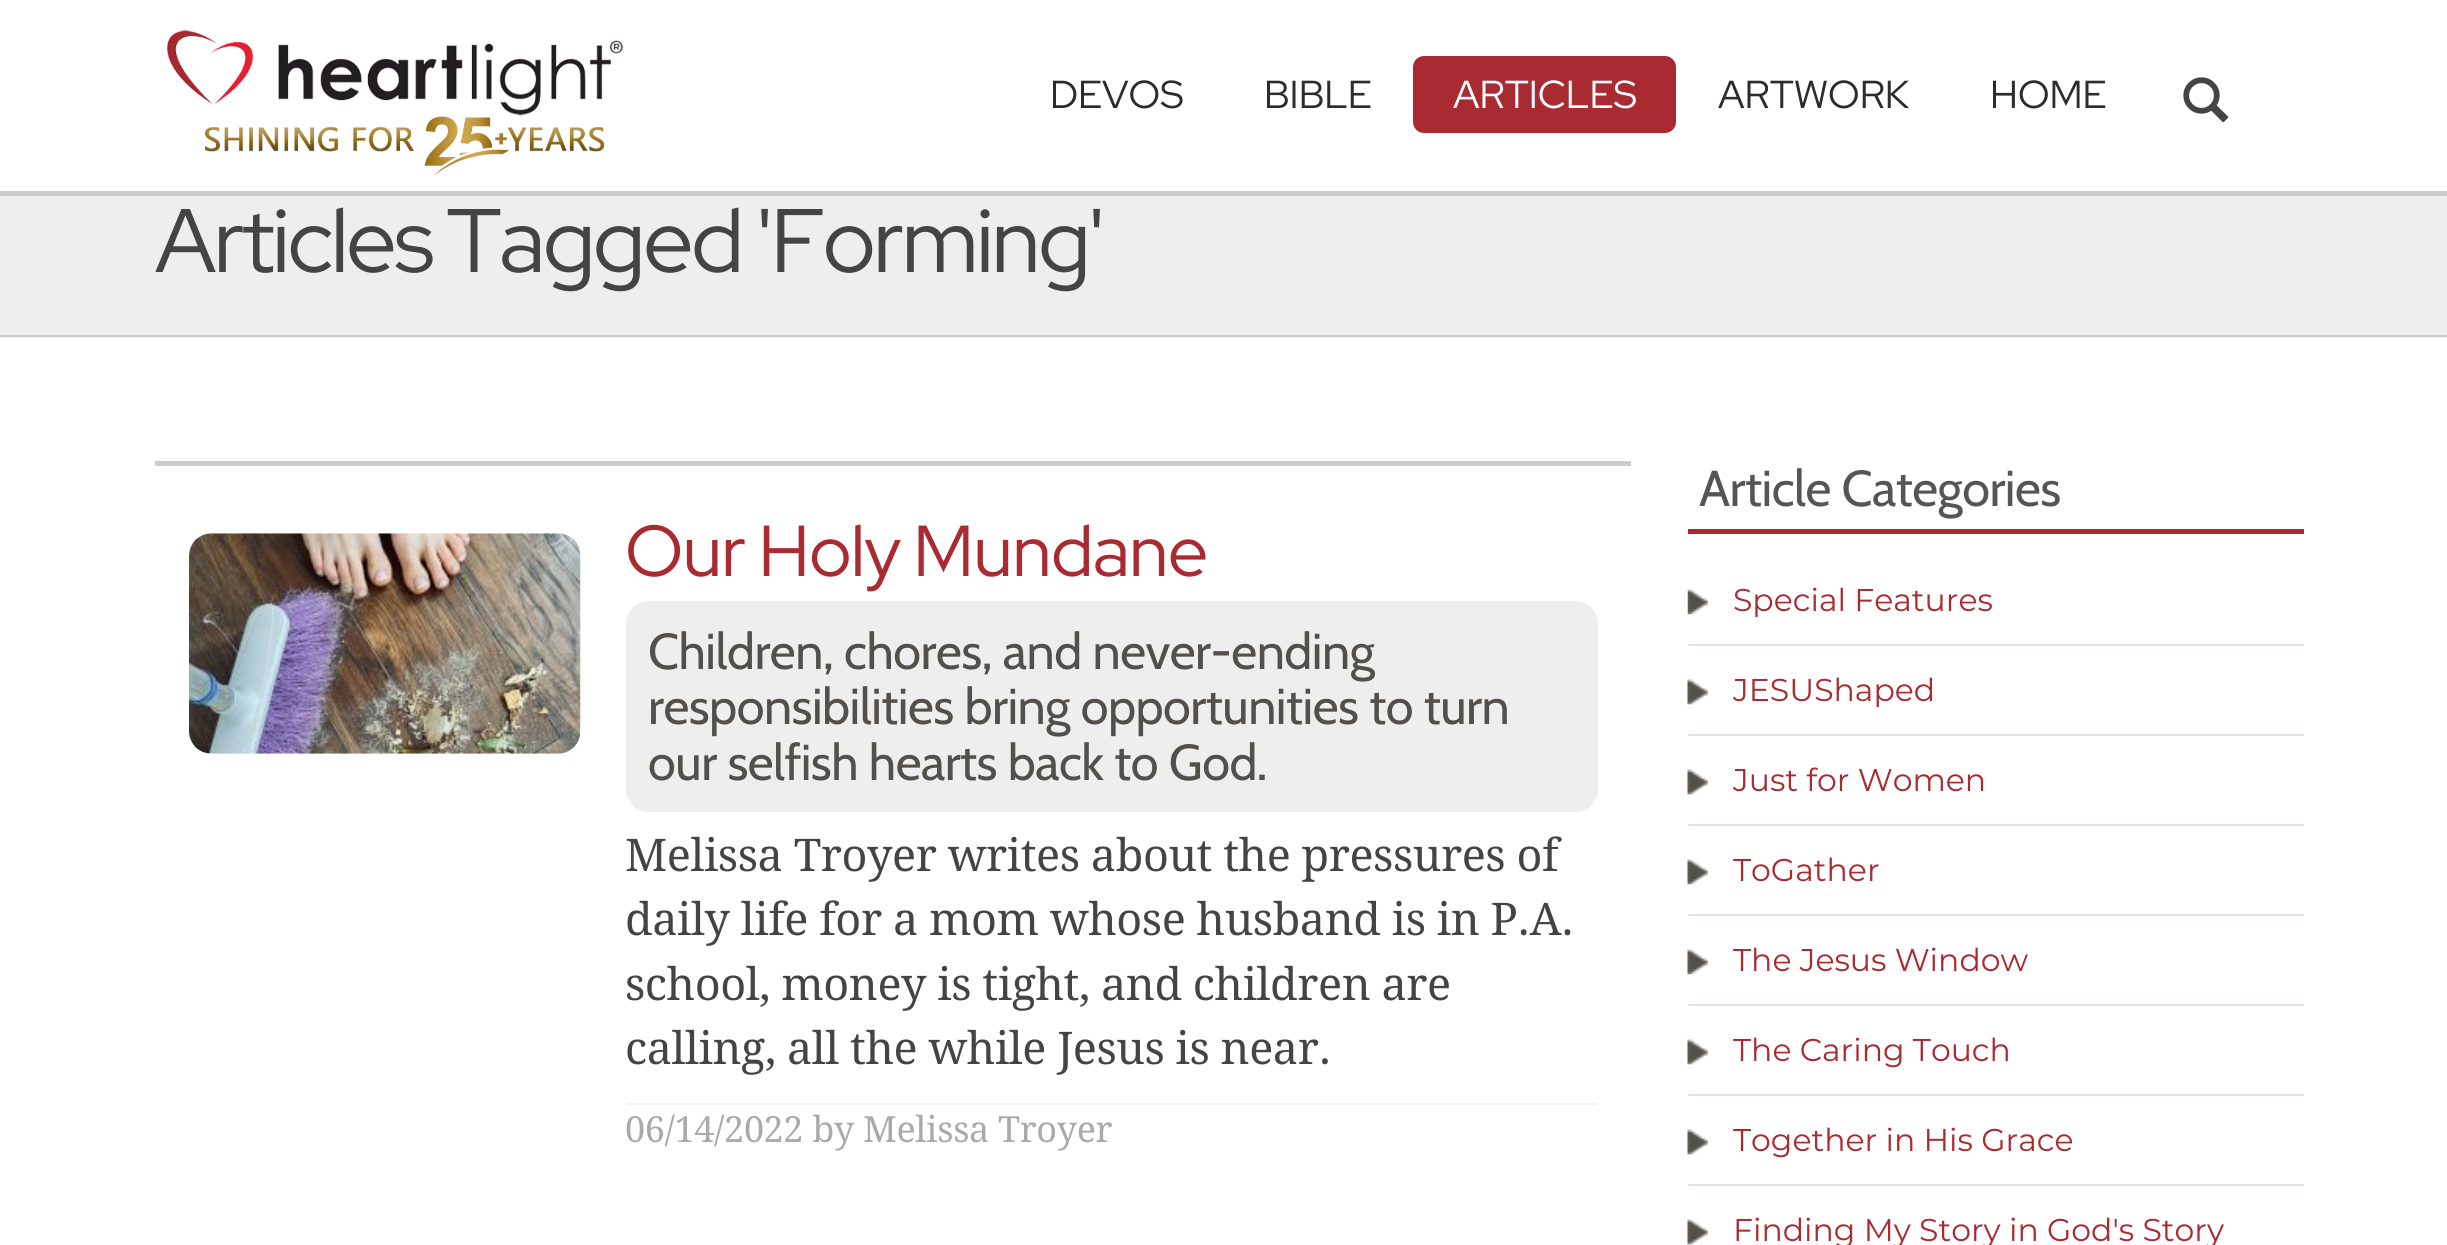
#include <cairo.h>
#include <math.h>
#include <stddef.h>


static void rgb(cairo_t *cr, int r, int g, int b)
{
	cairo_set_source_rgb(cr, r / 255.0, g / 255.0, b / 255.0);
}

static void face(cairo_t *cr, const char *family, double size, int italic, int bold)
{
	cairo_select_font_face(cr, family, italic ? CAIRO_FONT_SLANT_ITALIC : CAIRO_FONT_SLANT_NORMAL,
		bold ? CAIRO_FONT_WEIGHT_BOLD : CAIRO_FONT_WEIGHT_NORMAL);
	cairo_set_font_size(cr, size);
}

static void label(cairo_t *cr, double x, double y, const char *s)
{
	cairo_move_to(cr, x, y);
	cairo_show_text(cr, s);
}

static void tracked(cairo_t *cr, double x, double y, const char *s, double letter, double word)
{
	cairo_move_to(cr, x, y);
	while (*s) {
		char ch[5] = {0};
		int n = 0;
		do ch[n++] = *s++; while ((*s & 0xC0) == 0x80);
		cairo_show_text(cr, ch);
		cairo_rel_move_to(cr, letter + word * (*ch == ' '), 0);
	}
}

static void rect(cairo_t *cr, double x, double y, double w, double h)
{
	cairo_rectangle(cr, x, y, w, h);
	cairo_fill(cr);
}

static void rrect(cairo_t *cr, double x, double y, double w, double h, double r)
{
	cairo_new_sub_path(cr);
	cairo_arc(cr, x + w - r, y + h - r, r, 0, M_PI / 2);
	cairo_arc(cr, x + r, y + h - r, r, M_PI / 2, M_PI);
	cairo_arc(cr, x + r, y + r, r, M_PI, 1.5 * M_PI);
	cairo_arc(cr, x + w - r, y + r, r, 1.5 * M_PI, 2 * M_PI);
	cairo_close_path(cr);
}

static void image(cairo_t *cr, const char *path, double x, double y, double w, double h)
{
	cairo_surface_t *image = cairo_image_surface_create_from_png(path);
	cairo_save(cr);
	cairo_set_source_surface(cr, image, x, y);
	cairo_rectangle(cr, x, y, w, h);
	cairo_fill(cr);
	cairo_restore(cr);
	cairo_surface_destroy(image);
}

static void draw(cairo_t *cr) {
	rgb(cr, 255, 255, 255);
	cairo_paint(cr);
	rgb(cr, 204, 204, 204);
	rect(cr, 0, 191, 2447, 5);
	image(cr, "image0.png", 166, 30, 458, 146);
	face(cr, "Red Hat Display", 39, 0, 0);
	rgb(cr, 44, 44, 42);
	label(cr, 1050, 108, "DEVOS");
	label(cr, 1264, 108, "BIBLE");
	rgb(cr, 169, 42, 49);
	rrect(cr, 1413, 56, 263, 77, 11);
	cairo_fill(cr);
	rgb(cr, 255, 255, 255);
	label(cr, 1453, 108, "ARTICLES");
	rgb(cr, 44, 44, 42);
	label(cr, 1718, 108, "ARTWORK");
	label(cr, 1990, 108, "HOME");
	image(cr, "image1.png", 2183, 77, 46, 46);
	rgb(cr, 238, 238, 238);
	rect(cr, 0, 196, 2447, 142);
	rgb(cr, 204, 204, 204);
	rect(cr, 0, 335, 2447, 2);
	face(cr, "Red Hat Display", 90, 0, 0);
	rgb(cr, 68, 68, 68);
	tracked(cr, 155, 272, "Articles Tagged 'Forming'", -2.7, -2);
	rgb(cr, 204, 204, 204);
	rect(cr, 155, 461, 1476, 5);
	image(cr, "image2.png", 189, 533, 392, 221);
	face(cr, "Red Hat Display", 72, 0, 0);
	rgb(cr, 169, 42, 49);
	tracked(cr, 625, 576, "Our Holy Mundane", -0.75, -2);
	rgb(cr, 238, 238, 238);
	rrect(cr, 626, 601, 972, 211, 23);
	cairo_fill(cr);
	face(cr, "Cabin", 50.4, 0, 0);
	rgb(cr, 83, 80, 76);
	tracked(cr, 648, 669, "Children, chores, and never-ending", -0.5, 0);
	tracked(cr, 648, 724, "responsibilities bring opportunities to turn", -0.5, 0);
	tracked(cr, 648, 780, "our selfish hearts back to God.", -0.5, 0);
	face(cr, "Droid Serif", 45, 0, 0);
	rgb(cr, 68, 68, 68);
	tracked(cr, 625, 871, "Melissa Troyer writes about the pressures of", -0.45, 0);
	tracked(cr, 625, 935, "daily life for a mom whose husband is in P.A.", -0.45, 0);
	tracked(cr, 625, 1000, "school, money is tight, and children are", -0.45, 0);
	tracked(cr, 625, 1064, "calling, all the while Jesus is near.", -0.45, 0);
	rgb(cr, 238, 238, 238);
	rect(cr, 626, 1103, 972, 2);
	face(cr, "Droid Serif", 36, 0, 0);
	rgb(cr, 170, 170, 170);
	tracked(cr, 625, 1142, "06/14/2022 by Melissa Troyer", -0.35, 0);
	rgb(cr, 169, 41, 49);
	rect(cr, 1688, 529, 616, 5);
	face(cr, "Cabin", 50.4, 0, 0);
	rgb(cr, 85, 85, 85);
	tracked(cr, 1699, 506, "Article Categories", -0.5, 0);
	image(cr, "image3.png", 1687, 589, 21, 26);
	face(cr, "Montserrat", 31.5, 0, 0);
	rgb(cr, 169, 42, 49);
	label(cr, 1733, 611, "Special Features");
	image(cr, "image4.png", 1687, 679, 21, 26);
	rgb(cr, 231, 225, 223);
	rect(cr, 1688, 644, 616, 2);
	rgb(cr, 169, 42, 49);
	label(cr, 1733, 701, "JESUShaped");
	image(cr, "image4.png", 1687, 769, 21, 26);
	rgb(cr, 231, 225, 223);
	rect(cr, 1688, 734, 616, 2);
	rgb(cr, 169, 42, 49);
	label(cr, 1733, 791, "Just for Women");
	image(cr, "image4.png", 1687, 859, 21, 26);
	rgb(cr, 231, 225, 223);
	rect(cr, 1688, 824, 616, 2);
	rgb(cr, 169, 42, 49);
	label(cr, 1733, 881, "ToGather");
	image(cr, "image4.png", 1687, 949, 21, 26);
	rgb(cr, 231, 225, 223);
	rect(cr, 1688, 914, 616, 2);
	rgb(cr, 169, 42, 49);
	label(cr, 1733, 971, "The Jesus Window");
	image(cr, "image4.png", 1687, 1039, 21, 26);
	rgb(cr, 231, 225, 223);
	rect(cr, 1688, 1004, 616, 2);
	rgb(cr, 169, 42, 49);
	label(cr, 1733, 1061, "The Caring Touch");
	image(cr, "image4.png", 1687, 1129, 21, 26);
	rgb(cr, 231, 225, 223);
	rect(cr, 1688, 1094, 616, 2);
	rgb(cr, 169, 42, 49);
	label(cr, 1733, 1151, "Together in His Grace");
	image(cr, "image4.png", 1687, 1219, 21, 26);
	rgb(cr, 231, 225, 223);
	rect(cr, 1688, 1184, 616, 2);
	rgb(cr, 169, 42, 49);
	label(cr, 1733, 1241, "Finding My Story in God's Story");
}

int main(void) {
	cairo_surface_t *surface = cairo_image_surface_create(CAIRO_FORMAT_RGB24, 2447, 1245);
	cairo_t *cr = cairo_create(surface);
	cairo_font_options_t *options = cairo_font_options_create();
	cairo_font_options_set_hint_metrics(options, CAIRO_HINT_METRICS_OFF);
	cairo_font_options_set_hint_style(options, CAIRO_HINT_STYLE_NONE);
	cairo_set_font_options(cr, options);
	cairo_set_miter_limit(cr, 4);
	draw(cr);
	cairo_surface_write_to_png(surface, "render.png");
	cairo_font_options_destroy(options);
	cairo_destroy(cr);
	cairo_surface_destroy(surface);
	return 0;
}
